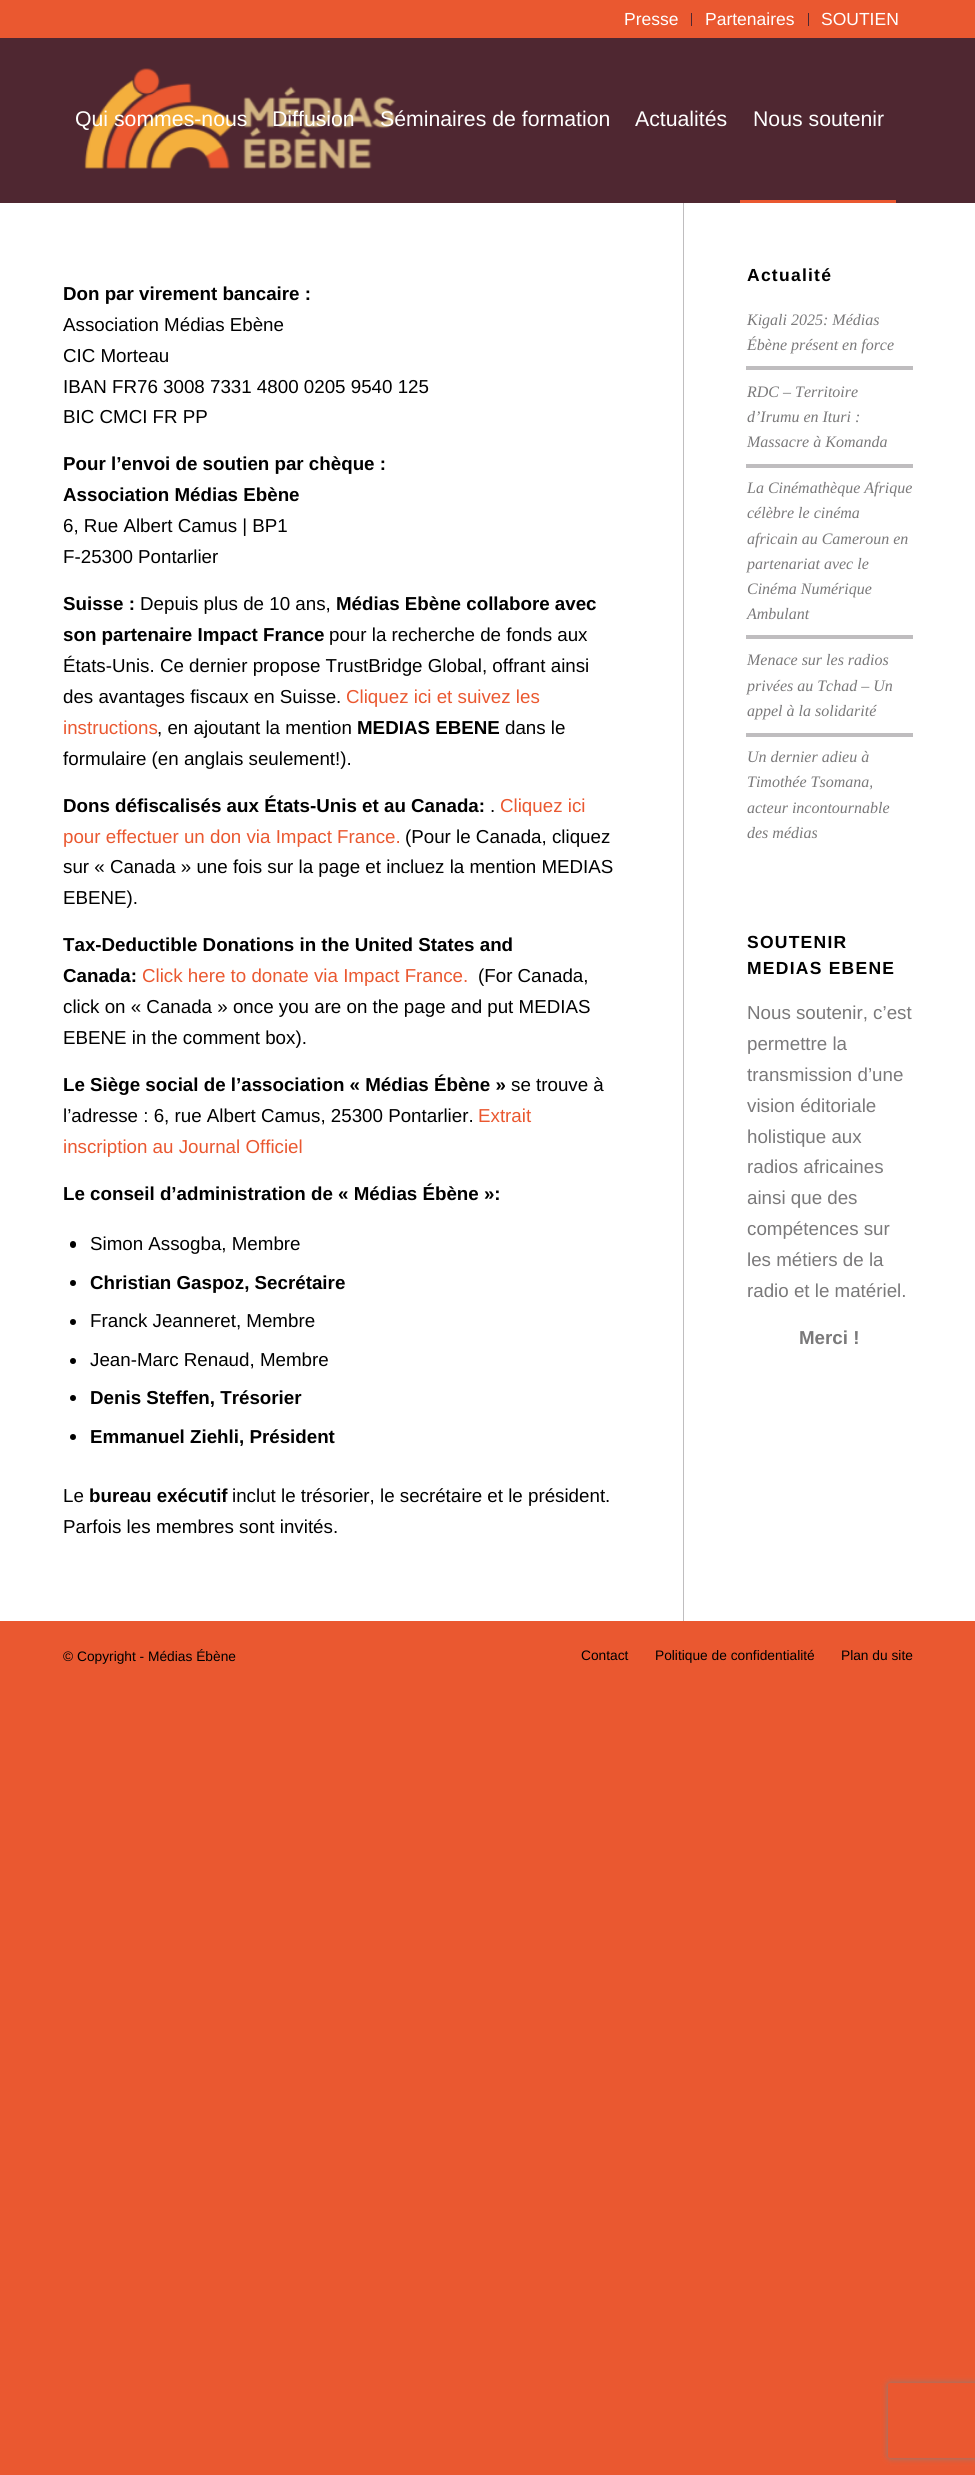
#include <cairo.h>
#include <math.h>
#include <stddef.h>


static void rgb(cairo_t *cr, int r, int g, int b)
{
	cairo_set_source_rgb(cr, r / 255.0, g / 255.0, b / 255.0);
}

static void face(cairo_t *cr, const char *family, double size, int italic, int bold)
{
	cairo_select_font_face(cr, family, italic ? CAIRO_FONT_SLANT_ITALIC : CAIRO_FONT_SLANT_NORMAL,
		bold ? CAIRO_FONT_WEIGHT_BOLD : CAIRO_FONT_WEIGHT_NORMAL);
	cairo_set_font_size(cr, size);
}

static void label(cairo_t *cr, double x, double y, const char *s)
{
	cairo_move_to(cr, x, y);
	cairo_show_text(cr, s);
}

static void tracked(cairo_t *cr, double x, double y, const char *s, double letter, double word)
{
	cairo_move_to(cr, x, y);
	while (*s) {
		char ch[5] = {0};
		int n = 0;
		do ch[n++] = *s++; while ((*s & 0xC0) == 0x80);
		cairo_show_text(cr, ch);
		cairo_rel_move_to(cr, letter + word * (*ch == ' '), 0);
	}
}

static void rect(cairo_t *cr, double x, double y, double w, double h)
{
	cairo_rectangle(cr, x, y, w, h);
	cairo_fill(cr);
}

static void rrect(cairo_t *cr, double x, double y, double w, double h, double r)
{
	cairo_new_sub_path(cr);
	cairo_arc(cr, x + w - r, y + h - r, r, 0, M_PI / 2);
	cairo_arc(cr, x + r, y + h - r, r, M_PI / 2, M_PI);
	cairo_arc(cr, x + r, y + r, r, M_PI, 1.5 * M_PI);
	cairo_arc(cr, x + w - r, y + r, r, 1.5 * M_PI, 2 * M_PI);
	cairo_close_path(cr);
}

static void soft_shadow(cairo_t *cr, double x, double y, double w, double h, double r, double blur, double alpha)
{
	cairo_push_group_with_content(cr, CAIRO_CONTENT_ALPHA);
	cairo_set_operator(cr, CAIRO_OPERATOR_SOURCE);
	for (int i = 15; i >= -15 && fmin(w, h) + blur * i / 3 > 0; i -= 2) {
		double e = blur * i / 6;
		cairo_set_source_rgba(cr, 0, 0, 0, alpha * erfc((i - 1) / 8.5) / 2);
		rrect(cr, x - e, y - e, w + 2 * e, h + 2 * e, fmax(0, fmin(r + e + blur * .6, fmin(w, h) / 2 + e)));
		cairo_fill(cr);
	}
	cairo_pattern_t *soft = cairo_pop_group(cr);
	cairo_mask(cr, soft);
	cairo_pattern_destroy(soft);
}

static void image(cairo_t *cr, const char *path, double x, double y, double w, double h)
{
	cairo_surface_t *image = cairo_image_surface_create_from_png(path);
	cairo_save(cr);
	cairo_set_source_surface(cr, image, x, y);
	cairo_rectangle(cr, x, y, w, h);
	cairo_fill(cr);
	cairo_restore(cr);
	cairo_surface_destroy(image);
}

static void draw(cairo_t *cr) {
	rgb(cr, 234, 88, 48);
	cairo_paint(cr);
	rgb(cr, 79, 39, 49);
	rect(cr, 691, 13, 1, 13);
	face(cr, "Liberation Sans", 17.5, 0, 0);
	rgb(cr, 255, 255, 255);
	label(cr, 624, 25, "Presse");
	rgb(cr, 79, 39, 49);
	rect(cr, 808, 13, 1, 13);
	rgb(cr, 255, 255, 255);
	label(cr, 705, 25, "Partenaires");
	label(cr, 821, 25, "SOUTIEN");
	rect(cr, 0, 203, 975, 1418);
	rgb(cr, 191, 189, 191);
	rect(cr, 683, 200, 1, 1421);
	rgb(cr, 79, 39, 49);
	rect(cr, 0, 38, 975, 165);
	image(cr, "image0.png", 84, 68, 312, 101);
	face(cr, "Liberation Sans", 21.25, 0, 0);
	rgb(cr, 255, 255, 255);
	label(cr, 75, 126, "Qui sommes-nous");
	label(cr, 272, 126, "Diffusion");
	label(cr, 380, 126, "Séminaires de formation");
	label(cr, 635, 126, "Actualités");
	label(cr, 753, 126, "Nous soutenir");
	rgb(cr, 234, 88, 48);
	rect(cr, 740, 200, 156, 3);
	face(cr, "Liberation Sans", 18.75, 0, 1);
	rgb(cr, 0, 0, 0);
	label(cr, 63, 300, "Don par virement bancaire :");
	face(cr, "Liberation Sans", 18.75, 0, 0);
	label(cr, 63, 331, "Association Médias Ebène");
	label(cr, 63, 362, "CIC Morteau");
	label(cr, 63, 393, "IBAN FR76 3008 7331 4800 0205 9540 125");
	label(cr, 63, 423, "BIC CMCI FR PP");
	face(cr, "Liberation Sans", 18.75, 0, 1);
	label(cr, 63, 470, "Pour l’envoi de soutien par chèque :");
	label(cr, 63, 501, "Association Médias Ebène");
	face(cr, "Liberation Sans", 18.75, 0, 0);
	label(cr, 63, 532, "6, Rue Albert Camus | BP1");
	label(cr, 63, 563, "F-25300 Pontarlier");
	face(cr, "Liberation Sans", 18.75, 0, 1);
	label(cr, 63, 610, "Suisse :");
	face(cr, "Liberation Sans", 18.75, 0, 0);
	label(cr, 140, 610, "Depuis plus de 10 ans,");
	face(cr, "Liberation Sans", 18.75, 0, 1);
	label(cr, 336, 610, "Médias Ebène collabore avec");
	label(cr, 63, 641, "son partenaire Impact France");
	face(cr, "Liberation Sans", 18.75, 0, 0);
	label(cr, 329, 641, "pour la recherche de fonds aux");
	label(cr, 63, 672, "États-Unis. Ce dernier propose TrustBridge Global, offrant ainsi");
	label(cr, 63, 703, "des avantages fiscaux en Suisse.");
	rgb(cr, 234, 88, 48);
	label(cr, 346, 703, "Cliquez ici et suivez les");
	label(cr, 63, 734, "instructions");
	rgb(cr, 0, 0, 0);
	label(cr, 157, 734, ", en ajoutant la mention");
	face(cr, "Liberation Sans", 18.75, 0, 1);
	label(cr, 357, 734, "MEDIAS EBENE");
	face(cr, "Liberation Sans", 18.75, 0, 0);
	label(cr, 505, 734, "dans le");
	label(cr, 63, 765, "formulaire (en anglais seulement!).");
	face(cr, "Liberation Sans", 18.75, 0, 1);
	label(cr, 63, 812, "Dons défiscalisés aux États-Unis et au Canada:");
	face(cr, "Liberation Sans", 18.75, 0, 0);
	label(cr, 490, 812, ".");
	rgb(cr, 234, 88, 48);
	label(cr, 500, 812, "Cliquez ici");
	label(cr, 63, 843, "pour effectuer un don via Impact France.");
	rgb(cr, 0, 0, 0);
	label(cr, 405, 843, "(Pour le Canada, cliquez");
	label(cr, 63, 873, "sur « Canada » une fois sur la page et incluez la mention MEDIAS");
	label(cr, 63, 904, "EBENE).");
	face(cr, "Liberation Sans", 18.75, 0, 1);
	label(cr, 63, 951, "Tax-Deductible Donations in the United States and");
	label(cr, 63, 982, "Canada:");
	face(cr, "Liberation Sans", 18.75, 0, 0);
	rgb(cr, 234, 88, 48);
	label(cr, 142, 982, "Click here to donate via Impact France.");
	rgb(cr, 0, 0, 0);
	label(cr, 478, 982, "(For Canada,");
	label(cr, 63, 1013, "click on « Canada » once you are on the page and put MEDIAS");
	label(cr, 63, 1044, "EBENE in the comment box).");
	face(cr, "Liberation Sans", 18.75, 0, 1);
	label(cr, 63, 1091, "Le Siège social de l’association « Médias Ébène »");
	face(cr, "Liberation Sans", 18.75, 0, 0);
	label(cr, 511, 1091, "se trouve à");
	label(cr, 63, 1122, "l’adresse : 6, rue Albert Camus, 25300 Pontarlier.");
	rgb(cr, 234, 88, 48);
	label(cr, 478, 1122, "Extrait");
	label(cr, 63, 1153, "inscription au Journal Officiel");
	face(cr, "Liberation Sans", 18.75, 0, 1);
	rgb(cr, 0, 0, 0);
	label(cr, 63, 1200, "Le conseil d’administration de « Médias Ébène »:");
	rrect(cr, 70, 1241, 6, 7, 3);
	cairo_fill(cr);
	face(cr, "Liberation Sans", 18.75, 0, 0);
	label(cr, 90, 1250, "Simon Assogba, Membre");
	cairo_new_path(cr);
	cairo_arc(cr, 73, 1283, 3, 0, 2 * M_PI);
	cairo_fill(cr);
	face(cr, "Liberation Sans", 18.75, 0, 1);
	label(cr, 90, 1289, "Christian Gaspoz, Secrétaire");
	cairo_new_path(cr);
	cairo_arc(cr, 73, 1322, 3, 0, 2 * M_PI);
	cairo_fill(cr);
	face(cr, "Liberation Sans", 18.75, 0, 0);
	label(cr, 90, 1327, "Franck Jeanneret, Membre");
	cairo_new_path(cr);
	cairo_arc(cr, 73, 1361, 3, 0, 2 * M_PI);
	cairo_fill(cr);
	label(cr, 90, 1366, "Jean-Marc Renaud, Membre");
	cairo_new_path(cr);
	cairo_arc(cr, 73, 1398, 3, 0, 2 * M_PI);
	cairo_fill(cr);
	face(cr, "Liberation Sans", 18.75, 0, 1);
	label(cr, 90, 1404, "Denis Steffen, Trésorier");
	cairo_new_path(cr);
	cairo_arc(cr, 73, 1437, 3, 0, 2 * M_PI);
	cairo_fill(cr);
	label(cr, 90, 1443, "Emmanuel Ziehli, Président");
	face(cr, "Liberation Sans", 18.75, 0, 0);
	label(cr, 63, 1502, "Le");
	face(cr, "Liberation Sans", 18.75, 0, 1);
	label(cr, 89, 1502, "bureau exécutif");
	face(cr, "Liberation Sans", 18.75, 0, 0);
	label(cr, 232, 1502, "inclut le trésorier, le secrétaire et le président.");
	label(cr, 63, 1533, "Parfois les membres sont invités.");
	face(cr, "Liberation Sans", 17.5, 0, 1);
	tracked(cr, 747, 281, "Actualité", 1.25, 0);
	face(cr, "Liberation Serif", 16, 1, 0);
	rgb(cr, 122, 121, 122);
	label(cr, 747, 325, "Kigali 2025: Médias");
	label(cr, 747, 350, "Ébène présent en force");
	rgb(cr, 191, 189, 191);
	rect(cr, 746, 366, 167, 4);
	rgb(cr, 122, 121, 122);
	label(cr, 747, 397, "RDC – Territoire");
	label(cr, 747, 422, "d’Irumu en Ituri :");
	label(cr, 747, 447, "Massacre à Komanda");
	rgb(cr, 191, 189, 191);
	rect(cr, 746, 464, 167, 4);
	rgb(cr, 122, 121, 122);
	label(cr, 747, 493, "La Cinémathèque Afrique");
	label(cr, 747, 518, "célèbre le cinéma");
	label(cr, 747, 544, "africain au Cameroun en");
	label(cr, 747, 569, "partenariat avec le");
	label(cr, 747, 594, "Cinéma Numérique");
	label(cr, 747, 619, "Ambulant");
	rgb(cr, 191, 189, 191);
	rect(cr, 746, 635, 167, 4);
	rgb(cr, 122, 121, 122);
	label(cr, 747, 665, "Menace sur les radios");
	label(cr, 747, 691, "privées au Tchad – Un");
	label(cr, 747, 716, "appel à la solidarité");
	rgb(cr, 191, 189, 191);
	rect(cr, 746, 733, 167, 4);
	rgb(cr, 122, 121, 122);
	label(cr, 747, 762, "Un dernier adieu à");
	label(cr, 747, 787, "Timothée Tsomana,");
	label(cr, 747, 813, "acteur incontournable");
	label(cr, 747, 838, "des médias");
	face(cr, "Liberation Sans", 17.5, 0, 1);
	rgb(cr, 0, 0, 0);
	tracked(cr, 747, 948, "SOUTENIR", 1.25, 0);
	tracked(cr, 747, 974, "MEDIAS EBENE", 1.25, 0);
	face(cr, "Liberation Sans", 18.75, 0, 0);
	rgb(cr, 122, 121, 122);
	label(cr, 747, 1019, "Nous soutenir, c’est");
	label(cr, 747, 1050, "permettre la");
	label(cr, 747, 1081, "transmission d’une");
	label(cr, 747, 1112, "vision éditoriale");
	label(cr, 747, 1143, "holistique aux");
	label(cr, 747, 1173, "radios africaines");
	label(cr, 747, 1204, "ainsi que des");
	label(cr, 747, 1235, "compétences sur");
	label(cr, 747, 1266, "les métiers de la");
	label(cr, 747, 1297, "radio et le matériel.");
	face(cr, "Liberation Sans", 18.75, 0, 1);
	label(cr, 799, 1344, "Merci !");
	face(cr, "Liberation Sans", 13.75, 0, 0);
	rgb(cr, 0, 0, 0);
	label(cr, 63, 1661, "© Copyright - Médias Ébène");
	label(cr, 581, 1660, "Contact");
	label(cr, 655, 1660, "Politique de confidentialité");
	label(cr, 841, 1660, "Plan du site");
	cairo_save(cr);
	cairo_set_fill_rule(cr, CAIRO_FILL_RULE_EVEN_ODD);
	cairo_new_path(cr);
	cairo_move_to(cr, 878, 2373);
	cairo_line_to(cr, 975, 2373);
	cairo_line_to(cr, 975, 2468);
	cairo_line_to(cr, 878, 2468);
	cairo_close_path(cr);
	cairo_move_to(cr, 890.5, 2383);
	cairo_line_to(cr, 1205.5, 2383);
	cairo_curve_to(cr, 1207, 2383, 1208, 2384, 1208, 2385.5);
	cairo_line_to(cr, 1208, 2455.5);
	cairo_curve_to(cr, 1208, 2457, 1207, 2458, 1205.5, 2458);
	cairo_line_to(cr, 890.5, 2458);
	cairo_curve_to(cr, 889, 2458, 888, 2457, 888, 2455.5);
	cairo_line_to(cr, 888, 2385.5);
	cairo_curve_to(cr, 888, 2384, 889, 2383, 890.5, 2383);
	cairo_close_path(cr);
	cairo_clip(cr);
	rgb(cr, 128, 128, 128);
	soft_shadow(cr, 888, 2383, 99, 75, 2.5, 3, 1);
	cairo_restore(cr);
}

int main(void) {
	cairo_surface_t *surface = cairo_image_surface_create(CAIRO_FORMAT_RGB24, 975, 2475);
	cairo_t *cr = cairo_create(surface);
	cairo_font_options_t *options = cairo_font_options_create();
	cairo_font_options_set_hint_metrics(options, CAIRO_HINT_METRICS_OFF);
	cairo_font_options_set_hint_style(options, CAIRO_HINT_STYLE_NONE);
	cairo_set_font_options(cr, options);
	cairo_set_miter_limit(cr, 4);
	draw(cr);
	cairo_surface_write_to_png(surface, "render.png");
	cairo_font_options_destroy(options);
	cairo_destroy(cr);
	cairo_surface_destroy(surface);
	return 0;
}
